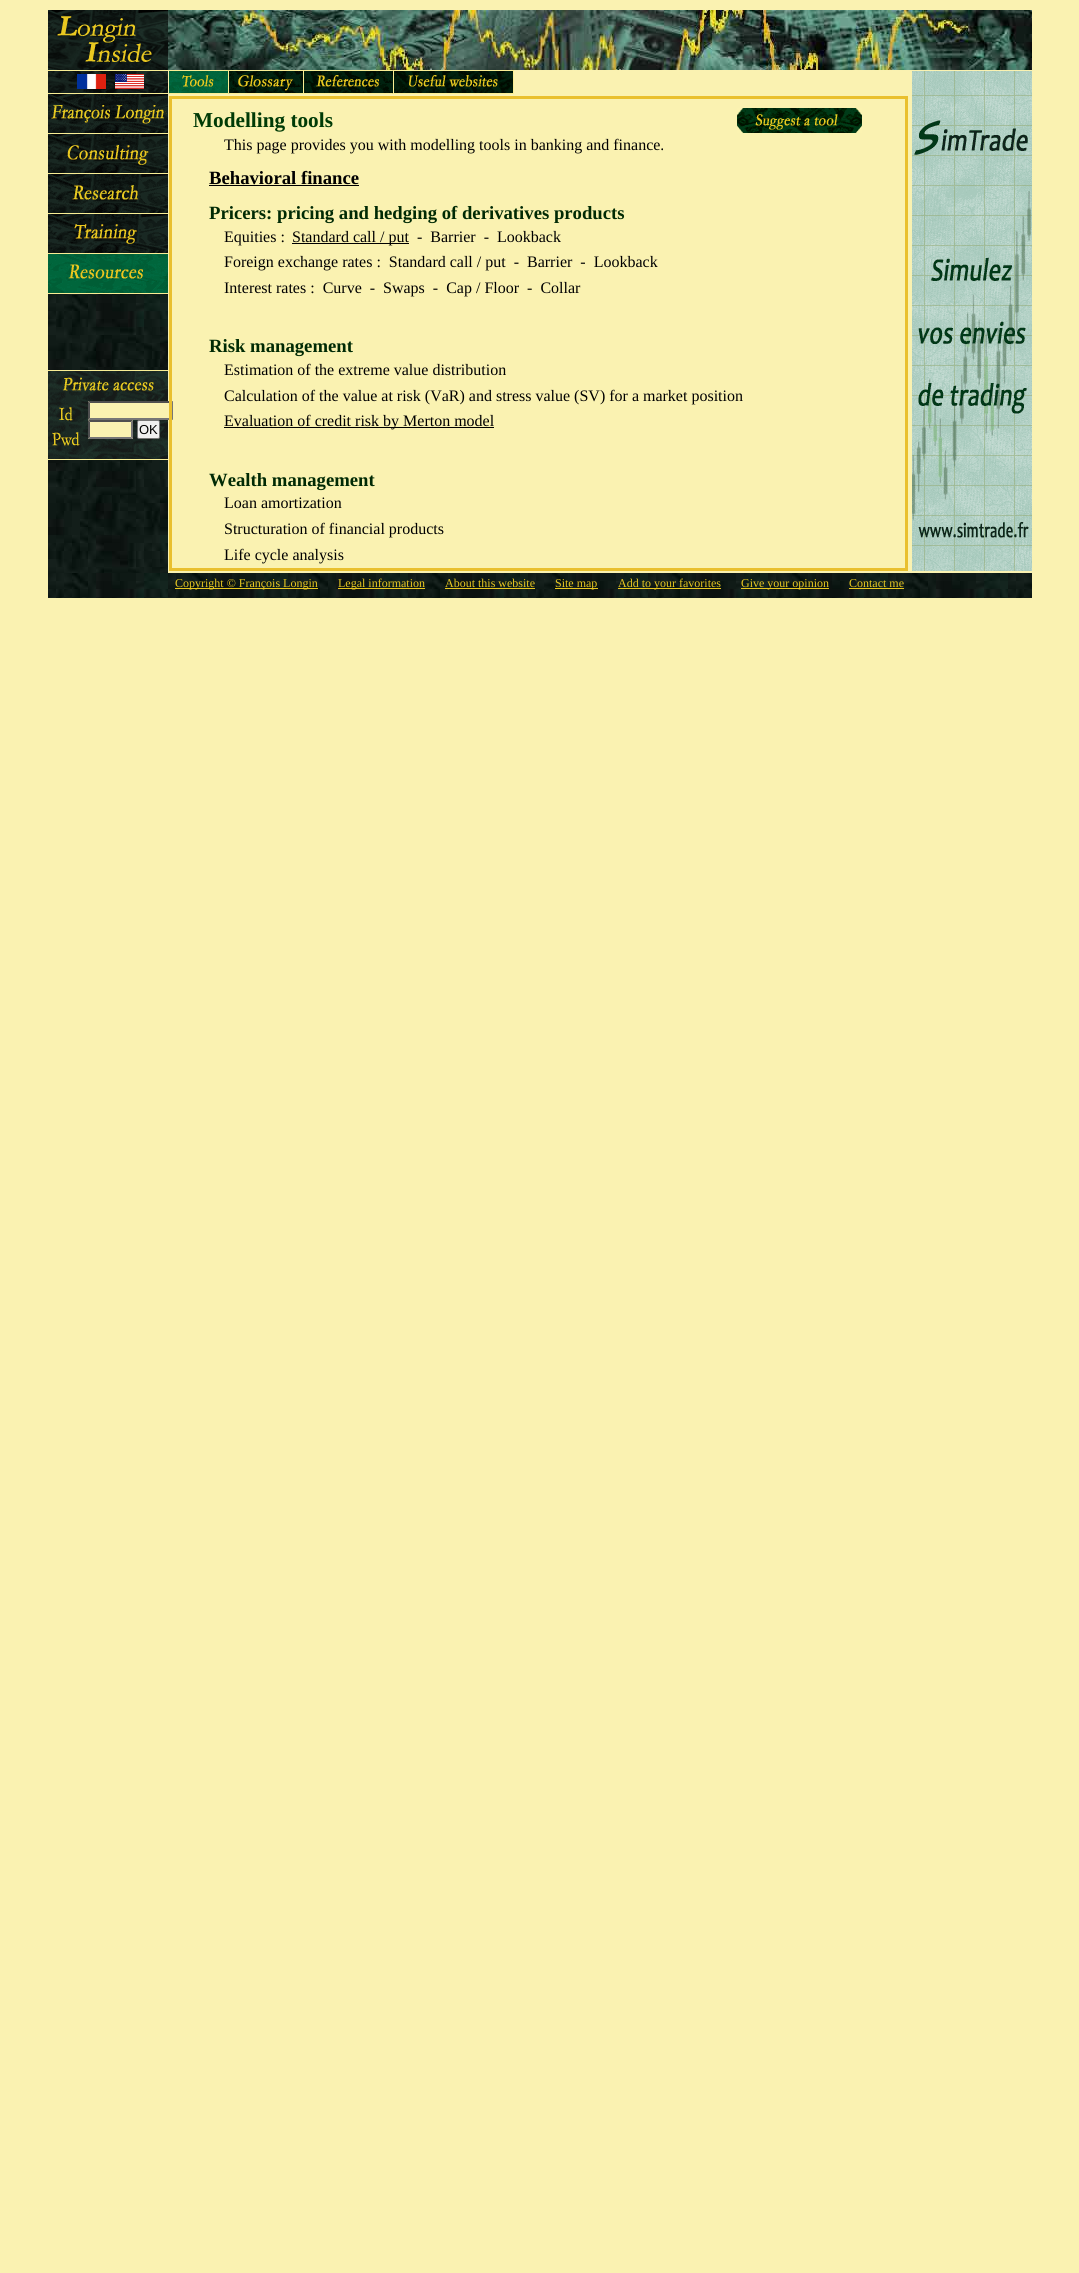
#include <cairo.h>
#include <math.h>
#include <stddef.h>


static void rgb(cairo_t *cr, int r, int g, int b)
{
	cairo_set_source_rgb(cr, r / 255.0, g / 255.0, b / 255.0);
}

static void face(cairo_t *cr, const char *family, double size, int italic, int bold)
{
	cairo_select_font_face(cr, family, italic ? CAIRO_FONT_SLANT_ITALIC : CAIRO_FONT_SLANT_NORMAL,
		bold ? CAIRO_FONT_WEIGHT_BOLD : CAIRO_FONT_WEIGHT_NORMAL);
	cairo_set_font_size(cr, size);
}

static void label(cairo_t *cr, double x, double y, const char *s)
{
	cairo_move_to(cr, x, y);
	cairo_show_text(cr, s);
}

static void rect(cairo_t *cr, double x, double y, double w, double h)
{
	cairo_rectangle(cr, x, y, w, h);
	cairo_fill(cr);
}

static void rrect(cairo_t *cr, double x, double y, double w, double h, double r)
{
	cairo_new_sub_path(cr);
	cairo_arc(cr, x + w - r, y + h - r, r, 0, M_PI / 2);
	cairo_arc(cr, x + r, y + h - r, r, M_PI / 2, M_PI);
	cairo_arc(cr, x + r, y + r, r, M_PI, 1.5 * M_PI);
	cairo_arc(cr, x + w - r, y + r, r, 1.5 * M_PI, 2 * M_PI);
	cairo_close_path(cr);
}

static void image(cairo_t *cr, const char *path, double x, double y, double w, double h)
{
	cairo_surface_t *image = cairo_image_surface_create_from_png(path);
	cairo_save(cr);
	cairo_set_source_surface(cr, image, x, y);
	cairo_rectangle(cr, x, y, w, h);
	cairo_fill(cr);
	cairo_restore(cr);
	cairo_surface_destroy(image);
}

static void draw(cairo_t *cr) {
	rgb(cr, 250, 242, 177);
	cairo_paint(cr);
	image(cr, "image0.png", 48, 10, 120, 60);
	image(cr, "image1.png", 168, 10, 864, 60);
	image(cr, "image2.png", 48, 70, 120, 24);
	image(cr, "image3.png", 77, 74, 29, 15);
	image(cr, "image4.png", 115, 74, 29, 15);
	image(cr, "image5.png", 169, 70, 60, 24);
	image(cr, "image6.png", 169, 71, 59, 22);
	image(cr, "image7.png", 229, 70, 75, 24);
	image(cr, "image8.png", 304, 70, 90, 24);
	image(cr, "image9.png", 394, 70, 120, 24);
	image(cr, "image10.png", 912, 71, 120, 500);
	image(cr, "image11.png", 48, 294, 120, 1);
	image(cr, "image12.png", 48, 94, 120, 40);
	image(cr, "image13.png", 48, 134, 120, 40);
	image(cr, "image14.png", 48, 174, 120, 40);
	image(cr, "image15.png", 48, 214, 120, 40);
	image(cr, "image16.png", 48, 293, 120, 1);
	image(cr, "image17.png", 48, 254, 120, 39);
	image(cr, "image20.png", 48, 355, 120, 218);
	image(cr, "image21.png", 48, 370, 120, 90);
	rgb(cr, 250, 242, 177);
	rect(cr, 88, 401, 80, 19);
	rgb(cr, 79, 79, 79);
	cairo_new_path(cr);
	cairo_move_to(cr, 88, 401);
	cairo_line_to(cr, 173, 401);
	cairo_line_to(cr, 171, 403);
	cairo_line_to(cr, 90, 403);
	cairo_close_path(cr);
	cairo_fill(cr);
	rgb(cr, 118, 118, 118);
	cairo_new_path(cr);
	cairo_move_to(cr, 173, 401);
	cairo_line_to(cr, 173, 420);
	cairo_line_to(cr, 171, 418);
	cairo_line_to(cr, 171, 403);
	cairo_close_path(cr);
	cairo_fill(cr);
	cairo_new_path(cr);
	cairo_move_to(cr, 173, 420);
	cairo_line_to(cr, 88, 420);
	cairo_line_to(cr, 90, 418);
	cairo_line_to(cr, 171, 418);
	cairo_close_path(cr);
	cairo_fill(cr);
	cairo_rectangle(cr, 170.5, 97.5, 736, 472);
	rgb(cr, 233, 192, 46);
	cairo_set_line_width(cr, 3);
	cairo_stroke(cr);
	face(cr, "Liberation Serif", 21.25, 0, 1);
	rgb(cr, 0, 59, 6);
	label(cr, 193, 127, "Modelling tools");
	image(cr, "image18.png", 737, 108, 125, 25);
	face(cr, "Liberation Serif", 16, 0, 0);
	rgb(cr, 0, 0, 0);
	label(cr, 224, 150, "This page provides you with modelling tools in banking and finance.");
	face(cr, "Liberation Serif", 18.7, 0, 1);
	label(cr, 209, 184, "Behavioral finance");
	rect(cr, 209, 185, 150, 1);
	rgb(cr, 0, 42, 4);
	label(cr, 209, 219, "Pricers: pricing and hedging of derivatives products");
	face(cr, "Liberation Serif", 16, 0, 0);
	rgb(cr, 0, 0, 0);
	label(cr, 224, 242, "Equities :");
	rect(cr, 292, 243, 117, 1);
	label(cr, 292, 242, "Standard call / put");
	label(cr, 417, 242, "-  Barrier  -  Lookback");
	label(cr, 224, 267, "Foreign exchange rates :  Standard call / put  -  Barrier  -  Lookback");
	label(cr, 224, 293, "Interest rates :  Curve  -  Swaps  -  Cap / Floor  -  Collar");
	face(cr, "Liberation Serif", 18.7, 0, 1);
	rgb(cr, 0, 42, 4);
	label(cr, 209, 352, "Risk management");
	face(cr, "Liberation Serif", 16, 0, 0);
	rgb(cr, 0, 0, 0);
	label(cr, 224, 375, "Estimation of the extreme value distribution");
	label(cr, 224, 401, "Calculation of the value at risk (VaR) and stress value (SV) for a market position");
	rect(cr, 224, 427, 270, 1);
	label(cr, 224, 426, "Evaluation of credit risk by Merton model");
	face(cr, "Liberation Serif", 18.7, 0, 1);
	rgb(cr, 0, 42, 4);
	label(cr, 209, 486, "Wealth management");
	face(cr, "Liberation Serif", 16, 0, 0);
	rgb(cr, 0, 0, 0);
	label(cr, 224, 508, "Loan amortization");
	label(cr, 224, 534, "Structuration of financial products");
	label(cr, 224, 560, "Life cycle analysis");
	image(cr, "image19.png", 48, 295, 120, 60);
	rgb(cr, 79, 79, 79);
	cairo_new_path(cr);
	cairo_move_to(cr, 88, 420);
	cairo_line_to(cr, 88, 401);
	cairo_line_to(cr, 90, 403);
	cairo_line_to(cr, 90, 418);
	cairo_close_path(cr);
	cairo_fill(cr);
	rgb(cr, 250, 242, 177);
	rect(cr, 88, 420, 45, 19);
	rgb(cr, 79, 79, 79);
	cairo_new_path(cr);
	cairo_move_to(cr, 88, 420);
	cairo_line_to(cr, 133, 420);
	cairo_line_to(cr, 131, 422);
	cairo_line_to(cr, 90, 422);
	cairo_close_path(cr);
	cairo_fill(cr);
	rgb(cr, 118, 118, 118);
	cairo_new_path(cr);
	cairo_move_to(cr, 133, 420);
	cairo_line_to(cr, 133, 439);
	cairo_line_to(cr, 131, 437);
	cairo_line_to(cr, 131, 422);
	cairo_close_path(cr);
	cairo_fill(cr);
	cairo_new_path(cr);
	cairo_move_to(cr, 133, 439);
	cairo_line_to(cr, 88, 439);
	cairo_line_to(cr, 90, 437);
	cairo_line_to(cr, 131, 437);
	cairo_close_path(cr);
	cairo_fill(cr);
	rgb(cr, 79, 79, 79);
	cairo_new_path(cr);
	cairo_move_to(cr, 88, 439);
	cairo_line_to(cr, 88, 420);
	cairo_line_to(cr, 90, 422);
	cairo_line_to(cr, 90, 437);
	cairo_close_path(cr);
	cairo_fill(cr);
	rgb(cr, 239, 239, 239);
	rrect(cr, 137.5, 420.5, 22, 18, 1.5);
	cairo_fill_preserve(cr);
	rgb(cr, 118, 118, 118);
	cairo_set_line_width(cr, 1);
	cairo_stroke(cr);
	face(cr, "Liberation Sans", 13, 0, 0);
	rgb(cr, 0, 0, 0);
	label(cr, 139, 434, "OK");
	image(cr, "image22.png", 48, 573, 984, 25);
	rgb(cr, 233, 200, 32);
	rect(cr, 175, 588, 143, 1);
	face(cr, "Liberation Serif", 12, 0, 0);
	label(cr, 175, 587, "Copyright © François Longin");
	rect(cr, 338, 588, 87, 1);
	label(cr, 338, 587, "Legal information");
	label(cr, 445, 587, "About this website");
	rect(cr, 445, 588, 90, 1);
	rect(cr, 555, 588, 43, 1);
	label(cr, 555, 587, "Site map");
	rect(cr, 618, 588, 103, 1);
	label(cr, 618, 587, "Add to your favorites");
	rect(cr, 741, 588, 88, 1);
	label(cr, 741, 587, "Give your opinion");
	label(cr, 849, 587, "Contact me");
	rect(cr, 849, 588, 55, 1);
}

int main(void) {
	cairo_surface_t *surface = cairo_image_surface_create(CAIRO_FORMAT_RGB24, 1079, 2273);
	cairo_t *cr = cairo_create(surface);
	cairo_font_options_t *options = cairo_font_options_create();
	cairo_font_options_set_hint_metrics(options, CAIRO_HINT_METRICS_OFF);
	cairo_font_options_set_hint_style(options, CAIRO_HINT_STYLE_NONE);
	cairo_set_font_options(cr, options);
	cairo_set_miter_limit(cr, 4);
	draw(cr);
	cairo_surface_write_to_png(surface, "render.png");
	cairo_font_options_destroy(options);
	cairo_destroy(cr);
	cairo_surface_destroy(surface);
	return 0;
}
